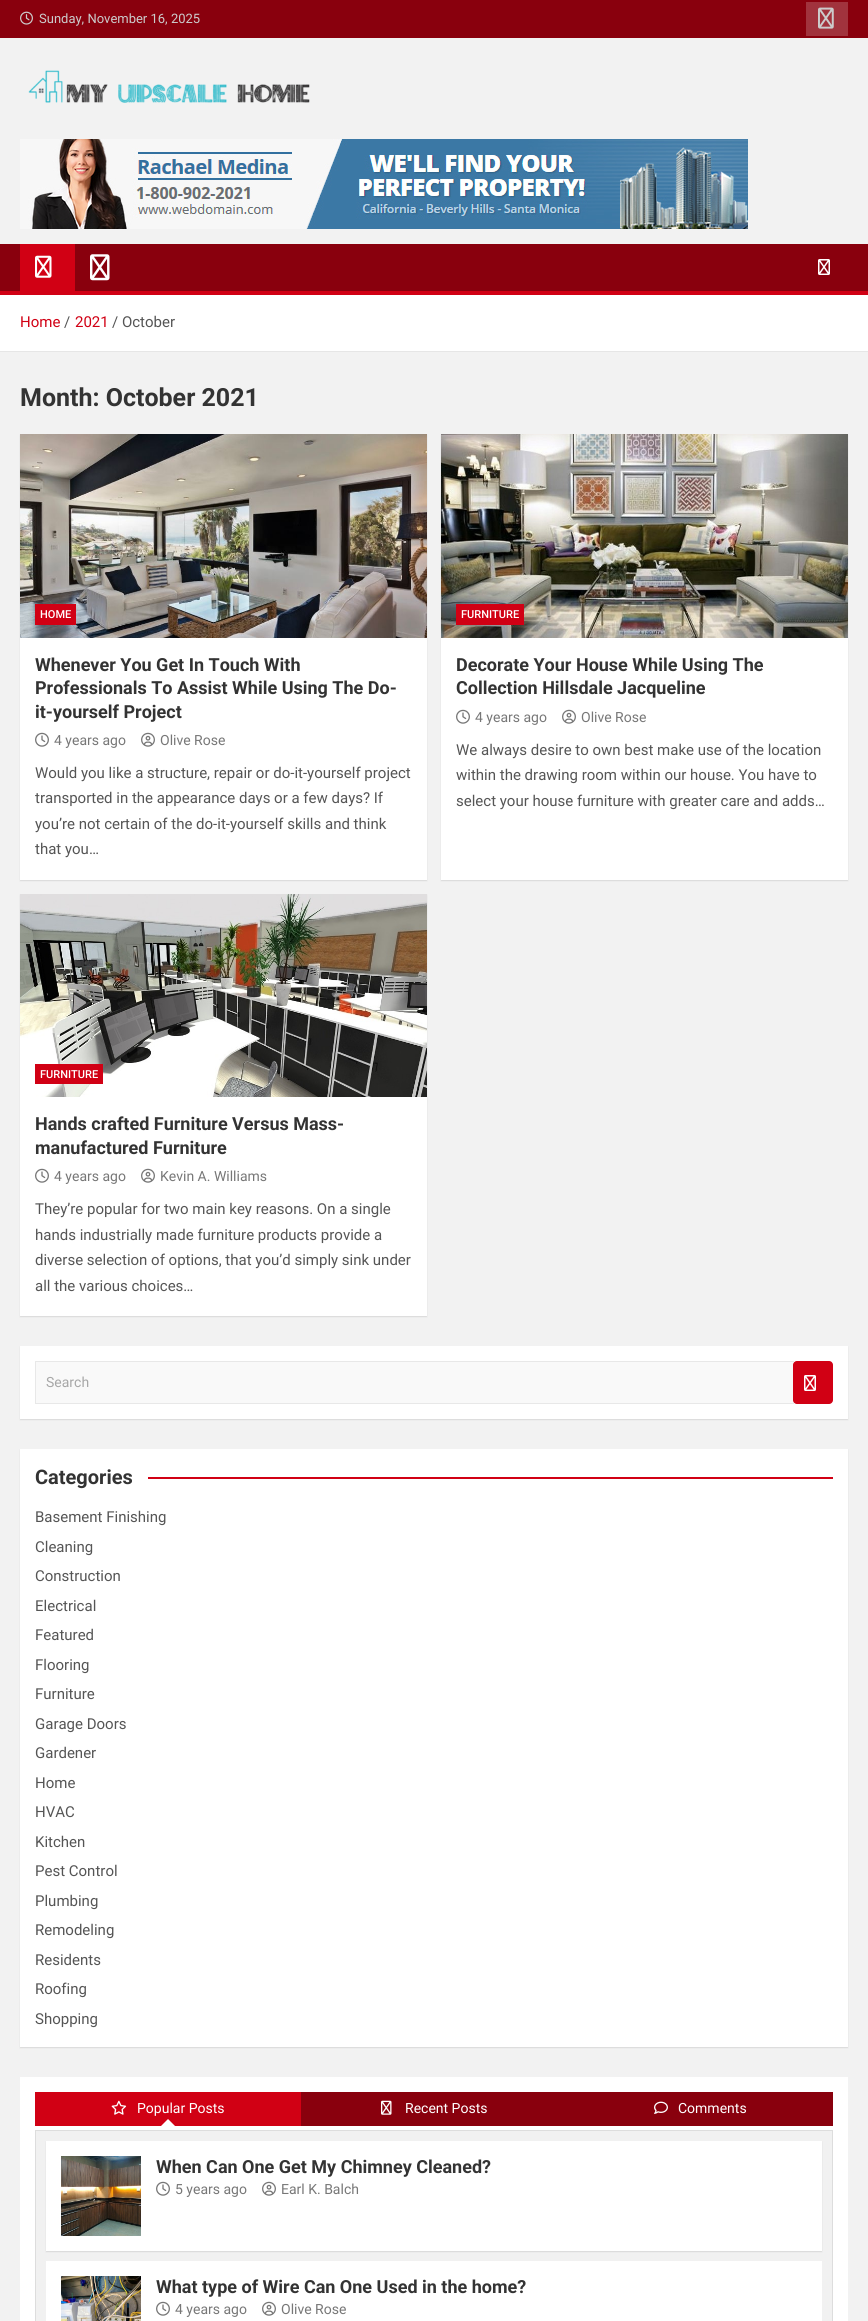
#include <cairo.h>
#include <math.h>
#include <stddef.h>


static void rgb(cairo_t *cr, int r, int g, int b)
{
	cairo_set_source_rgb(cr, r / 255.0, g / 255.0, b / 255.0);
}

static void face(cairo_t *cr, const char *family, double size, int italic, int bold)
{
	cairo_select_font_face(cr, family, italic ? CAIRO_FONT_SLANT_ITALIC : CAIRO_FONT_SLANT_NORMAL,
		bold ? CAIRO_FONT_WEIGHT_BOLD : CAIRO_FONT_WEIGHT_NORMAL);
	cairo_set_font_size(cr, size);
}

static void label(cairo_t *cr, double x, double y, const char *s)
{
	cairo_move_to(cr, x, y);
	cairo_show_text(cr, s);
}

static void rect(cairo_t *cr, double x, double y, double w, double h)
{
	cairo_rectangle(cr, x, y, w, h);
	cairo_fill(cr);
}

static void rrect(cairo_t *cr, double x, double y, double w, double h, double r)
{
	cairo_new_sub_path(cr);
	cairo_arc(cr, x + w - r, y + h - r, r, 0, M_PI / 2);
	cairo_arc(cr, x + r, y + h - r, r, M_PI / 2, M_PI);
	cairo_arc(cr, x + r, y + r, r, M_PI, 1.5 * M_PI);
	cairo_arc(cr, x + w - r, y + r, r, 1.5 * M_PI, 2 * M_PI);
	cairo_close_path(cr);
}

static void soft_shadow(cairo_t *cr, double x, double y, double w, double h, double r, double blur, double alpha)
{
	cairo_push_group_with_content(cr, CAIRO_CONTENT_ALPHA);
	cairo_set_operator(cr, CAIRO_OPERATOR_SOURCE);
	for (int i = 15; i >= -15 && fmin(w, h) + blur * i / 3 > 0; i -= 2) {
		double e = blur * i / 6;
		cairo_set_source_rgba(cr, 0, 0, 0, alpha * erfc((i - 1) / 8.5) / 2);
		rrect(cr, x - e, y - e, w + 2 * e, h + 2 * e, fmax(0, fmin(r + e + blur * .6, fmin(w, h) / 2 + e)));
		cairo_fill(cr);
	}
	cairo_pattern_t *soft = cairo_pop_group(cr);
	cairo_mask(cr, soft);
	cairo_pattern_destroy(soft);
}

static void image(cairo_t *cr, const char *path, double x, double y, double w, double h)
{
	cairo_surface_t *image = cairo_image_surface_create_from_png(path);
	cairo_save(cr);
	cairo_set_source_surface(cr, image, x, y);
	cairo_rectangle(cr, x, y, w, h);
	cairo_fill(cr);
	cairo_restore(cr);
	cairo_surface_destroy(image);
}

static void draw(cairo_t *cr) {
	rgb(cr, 242, 242, 242);
	cairo_paint(cr);
	rgb(cr, 137, 0, 13);
	rect(cr, 0, 0, 868, 38);
	image(cr, "image0.png", 20, 11, 13, 14);
	face(cr, "Roboto", 13, 0, 0);
	rgb(cr, 204, 204, 204);
	label(cr, 39, 23, "Sunday, November 16, 2025");
	rgb(cr, 161, 51, 61);
	rect(cr, 806, 2, 42, 34);
	image(cr, "image1.png", 818, 7, 16, 22);
	image(cr, "image2.png", 28, 70, 282, 33);
	image(cr, "image3.png", 20, 139, 728, 90);
	rgb(cr, 137, 0, 13);
	rect(cr, 0, 244, 868, 47);
	rgb(cr, 209, 0, 20);
	rect(cr, 20, 244, 55, 47);
	image(cr, "image4.png", 35, 255, 17, 23);
	image(cr, "image5.png", 90, 254, 20, 27);
	image(cr, "image6.png", 818, 259, 12, 16);
	rect(cr, 0, 291, 868, 4);
	rgb(cr, 255, 255, 255);
	rect(cr, 0, 295, 868, 56);
	rgb(cr, 230, 230, 230);
	rect(cr, 0, 351, 868, 1);
	face(cr, "Roboto", 15, 0, 0);
	rgb(cr, 209, 0, 20);
	label(cr, 20, 327, "Home");
	rgb(cr, 85, 85, 85);
	label(cr, 64, 327, "/");
	rgb(cr, 209, 0, 20);
	label(cr, 75, 327, "2021");
	rgb(cr, 85, 85, 85);
	label(cr, 112, 327, "/ October");
	face(cr, "Roboto", 25, 0, 1);
	rgb(cr, 51, 51, 51);
	label(cr, 20, 406, "Month: October 2021");
	rgb(cr, 0, 0, 0);
	soft_shadow(cr, 20, 435, 407, 446, 0, 0.5, 0.1);
	rgb(cr, 255, 255, 255);
	rect(cr, 20, 638, 407, 242);
	image(cr, "image7.png", 20, 434, 407, 204);
	rgb(cr, 209, 0, 20);
	rect(cr, 35, 604, 41, 21);
	face(cr, "Roboto Medium", 11, 0, 0);
	rgb(cr, 255, 255, 255);
	label(cr, 40, 618, "HOME");
	face(cr, "Roboto", 18, 0, 1);
	rgb(cr, 51, 51, 51);
	label(cr, 35, 671, "Whenever You Get In Touch With");
	label(cr, 35, 694, "Professionals To Assist While Using The Do-");
	label(cr, 35, 718, "it-yourself Project");
	image(cr, "image8.png", 35, 732, 14, 15);
	face(cr, "Roboto", 14, 0, 0);
	rgb(cr, 119, 119, 119);
	label(cr, 54, 745, "4 years ago");
	image(cr, "image9.png", 141, 732, 14, 15);
	label(cr, 160, 745, "Olive Rose");
	face(cr, "Roboto", 15, 0, 0);
	rgb(cr, 85, 85, 85);
	label(cr, 35, 778, "Would you like a structure, repair or do-it-yourself project");
	label(cr, 35, 803, "transported in the appearance days or a few days? If");
	label(cr, 35, 829, "you’re not certain of the do-it-yourself skills and think");
	label(cr, 35, 854, "that you…");
	rgb(cr, 0, 0, 0);
	soft_shadow(cr, 441, 435, 407, 446, 0, 0.5, 0.1);
	rgb(cr, 255, 255, 255);
	rect(cr, 441, 638, 407, 242);
	image(cr, "image10.png", 441, 434, 407, 204);
	rgb(cr, 209, 0, 20);
	rect(cr, 456, 604, 68, 21);
	face(cr, "Roboto Medium", 11, 0, 0);
	rgb(cr, 255, 255, 255);
	label(cr, 461, 618, "FURNITURE");
	face(cr, "Roboto", 18, 0, 1);
	rgb(cr, 51, 51, 51);
	label(cr, 456, 671, "Decorate Your House While Using The");
	label(cr, 456, 694, "Collection Hillsdale Jacqueline");
	image(cr, "image8.png", 456, 709, 14, 15);
	face(cr, "Roboto", 14, 0, 0);
	rgb(cr, 119, 119, 119);
	label(cr, 475, 722, "4 years ago");
	image(cr, "image9.png", 562, 709, 14, 15);
	label(cr, 581, 722, "Olive Rose");
	face(cr, "Roboto", 15, 0, 0);
	rgb(cr, 85, 85, 85);
	label(cr, 456, 755, "We always desire to own best make use of the location");
	label(cr, 456, 780, "within the drawing room within our house. You have to");
	label(cr, 456, 806, "select your house furniture with greater care and adds…");
	rgb(cr, 0, 0, 0);
	soft_shadow(cr, 20, 895, 407, 422, 0, 0.5, 0.1);
	rgb(cr, 255, 255, 255);
	rect(cr, 20, 1097, 407, 219);
	image(cr, "image11.png", 20, 894, 407, 203);
	rgb(cr, 209, 0, 20);
	rect(cr, 35, 1064, 68, 20);
	face(cr, "Roboto Medium", 11, 0, 0);
	rgb(cr, 255, 255, 255);
	label(cr, 40, 1078, "FURNITURE");
	face(cr, "Roboto", 18, 0, 1);
	rgb(cr, 51, 51, 51);
	label(cr, 35, 1130, "Hands crafted Furniture Versus Mass-");
	label(cr, 35, 1154, "manufactured Furniture");
	image(cr, "image8.png", 35, 1168, 14, 15);
	face(cr, "Roboto", 14, 0, 0);
	rgb(cr, 119, 119, 119);
	label(cr, 54, 1181, "4 years ago");
	image(cr, "image9.png", 141, 1168, 14, 15);
	label(cr, 160, 1181, "Kevin A. Williams");
	face(cr, "Roboto", 15, 0, 0);
	rgb(cr, 85, 85, 85);
	label(cr, 35, 1214, "They’re popular for two main key reasons. On a single");
	label(cr, 35, 1240, "hands industrially made furniture products provide a");
	label(cr, 35, 1265, "diverse selection of options, that you’d simply sink under");
	label(cr, 35, 1291, "all the various choices…");
	rgb(cr, 0, 0, 0);
	soft_shadow(cr, 20, 1347, 828, 73, 0, 0.5, 0.1);
	rgb(cr, 255, 255, 255);
	rect(cr, 20, 1346, 828, 73);
	rgb(cr, 249, 249, 249);
	rect(cr, 36, 1362, 758, 41);
	rgb(cr, 232, 232, 232);
	cairo_new_path(cr);
	cairo_move_to(cr, 35, 1361);
	cairo_line_to(cr, 794, 1361);
	cairo_line_to(cr, 794, 1362);
	cairo_line_to(cr, 36, 1362);
	cairo_close_path(cr);
	cairo_fill(cr);
	cairo_new_path(cr);
	cairo_move_to(cr, 794, 1404);
	cairo_line_to(cr, 35, 1404);
	cairo_line_to(cr, 36, 1403);
	cairo_line_to(cr, 794, 1403);
	cairo_close_path(cr);
	cairo_fill(cr);
	cairo_set_source_rgba(cr, 0, 0, 0, 0.09);
	cairo_new_path(cr);
	cairo_move_to(cr, 35, 1404);
	cairo_line_to(cr, 35, 1361);
	cairo_line_to(cr, 36, 1362);
	cairo_line_to(cr, 36, 1403);
	cairo_close_path(cr);
	cairo_fill(cr);
	face(cr, "Roboto", 14, 0, 0);
	rgb(cr, 167, 167, 167);
	label(cr, 46, 1387, "Search");
	rgb(cr, 209, 0, 20);
	rrect(cr, 793, 1361, 40, 43, 4);
	cairo_fill(cr);
	image(cr, "image12.png", 804, 1375, 12, 16);
	rgb(cr, 0, 0, 0);
	soft_shadow(cr, 20, 1450, 828, 598, 0, 0.5, 0.1);
	rgb(cr, 255, 255, 255);
	rect(cr, 20, 1449, 828, 598);
	face(cr, "Roboto", 20, 0, 1);
	rgb(cr, 51, 51, 51);
	label(cr, 35, 1484, "Categories");
	rgb(cr, 209, 0, 20);
	rect(cr, 148, 1477, 685, 2);
	face(cr, "Roboto", 15, 0, 0);
	rgb(cr, 85, 85, 85);
	label(cr, 35, 1522, "Basement Finishing");
	label(cr, 35, 1552, "Cleaning");
	label(cr, 35, 1581, "Construction");
	label(cr, 35, 1611, "Electrical");
	label(cr, 35, 1640, "Featured");
	label(cr, 35, 1670, "Flooring");
	label(cr, 35, 1699, "Furniture");
	label(cr, 35, 1729, "Garage Doors");
	label(cr, 35, 1758, "Gardener");
	label(cr, 35, 1788, "Home");
	label(cr, 35, 1817, "HVAC");
	label(cr, 35, 1847, "Kitchen");
	label(cr, 35, 1876, "Pest Control");
	label(cr, 35, 1906, "Plumbing");
	label(cr, 35, 1935, "Remodeling");
	label(cr, 35, 1965, "Residents");
	label(cr, 35, 1994, "Roofing");
	label(cr, 35, 2024, "Shopping");
	rgb(cr, 255, 255, 255);
	rect(cr, 20, 2077, 828, 244);
	rgb(cr, 209, 0, 20);
	rect(cr, 35, 2092, 266, 34);
	image(cr, "image13.png", 111, 2100, 16, 15);
	face(cr, "Roboto", 14, 0, 0);
	rgb(cr, 255, 255, 255);
	label(cr, 137, 2113, "Popular Posts");
	cairo_new_path(cr);
	cairo_move_to(cr, 175, 2126);
	cairo_line_to(cr, 161, 2126);
	cairo_line_to(cr, 168, 2119);
	cairo_close_path(cr);
	cairo_fill(cr);
	rgb(cr, 137, 0, 13);
	rect(cr, 301, 2092, 532, 34);
	image(cr, "image14.png", 381, 2100, 11, 15);
	rgb(cr, 255, 255, 255);
	label(cr, 405, 2113, "Recent Posts");
	image(cr, "image15.png", 654, 2101, 14, 13);
	label(cr, 678, 2113, "Comments");
	rgb(cr, 241, 241, 241);
	cairo_rectangle(cr, 35.5, 2130.5, 797, 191);
	cairo_fill_preserve(cr);
	rgb(cr, 221, 221, 221);
	cairo_set_line_width(cr, 1);
	cairo_stroke(cr);
	rgb(cr, 0, 0, 0);
	soft_shadow(cr, 46, 2142, 776, 110, 0, 0.5, 0.1);
	rgb(cr, 255, 255, 255);
	rect(cr, 46, 2141, 776, 110);
	image(cr, "image16.png", 61, 2156, 80, 80);
	face(cr, "Roboto", 18, 0, 1);
	rgb(cr, 51, 51, 51);
	label(cr, 156, 2173, "When Can One Get My Chimney Cleaned?");
	image(cr, "image8.png", 156, 2181, 14, 15);
	face(cr, "Roboto", 14, 0, 0);
	rgb(cr, 119, 119, 119);
	label(cr, 175, 2194, "5 years ago");
	image(cr, "image9.png", 262, 2181, 14, 15);
	label(cr, 281, 2194, "Earl K. Balch");
	rgb(cr, 255, 255, 255);
	rect(cr, 46, 2261, 776, 60);
	image(cr, "image17.png", 61, 2276, 80, 45);
	face(cr, "Roboto", 18, 0, 1);
	rgb(cr, 51, 51, 51);
	label(cr, 156, 2293, "What type of Wire Can One Used in the home?");
	image(cr, "image8.png", 156, 2301, 14, 15);
	face(cr, "Roboto", 14, 0, 0);
	rgb(cr, 119, 119, 119);
	label(cr, 175, 2314, "4 years ago");
	image(cr, "image9.png", 262, 2301, 14, 15);
	label(cr, 281, 2314, "Olive Rose");
}

int main(void) {
	cairo_surface_t *surface = cairo_image_surface_create(CAIRO_FORMAT_RGB24, 868, 2321);
	cairo_t *cr = cairo_create(surface);
	cairo_font_options_t *options = cairo_font_options_create();
	cairo_font_options_set_hint_metrics(options, CAIRO_HINT_METRICS_OFF);
	cairo_font_options_set_hint_style(options, CAIRO_HINT_STYLE_NONE);
	cairo_set_font_options(cr, options);
	cairo_set_miter_limit(cr, 4);
	draw(cr);
	cairo_surface_write_to_png(surface, "render.png");
	cairo_font_options_destroy(options);
	cairo_destroy(cr);
	cairo_surface_destroy(surface);
	return 0;
}
